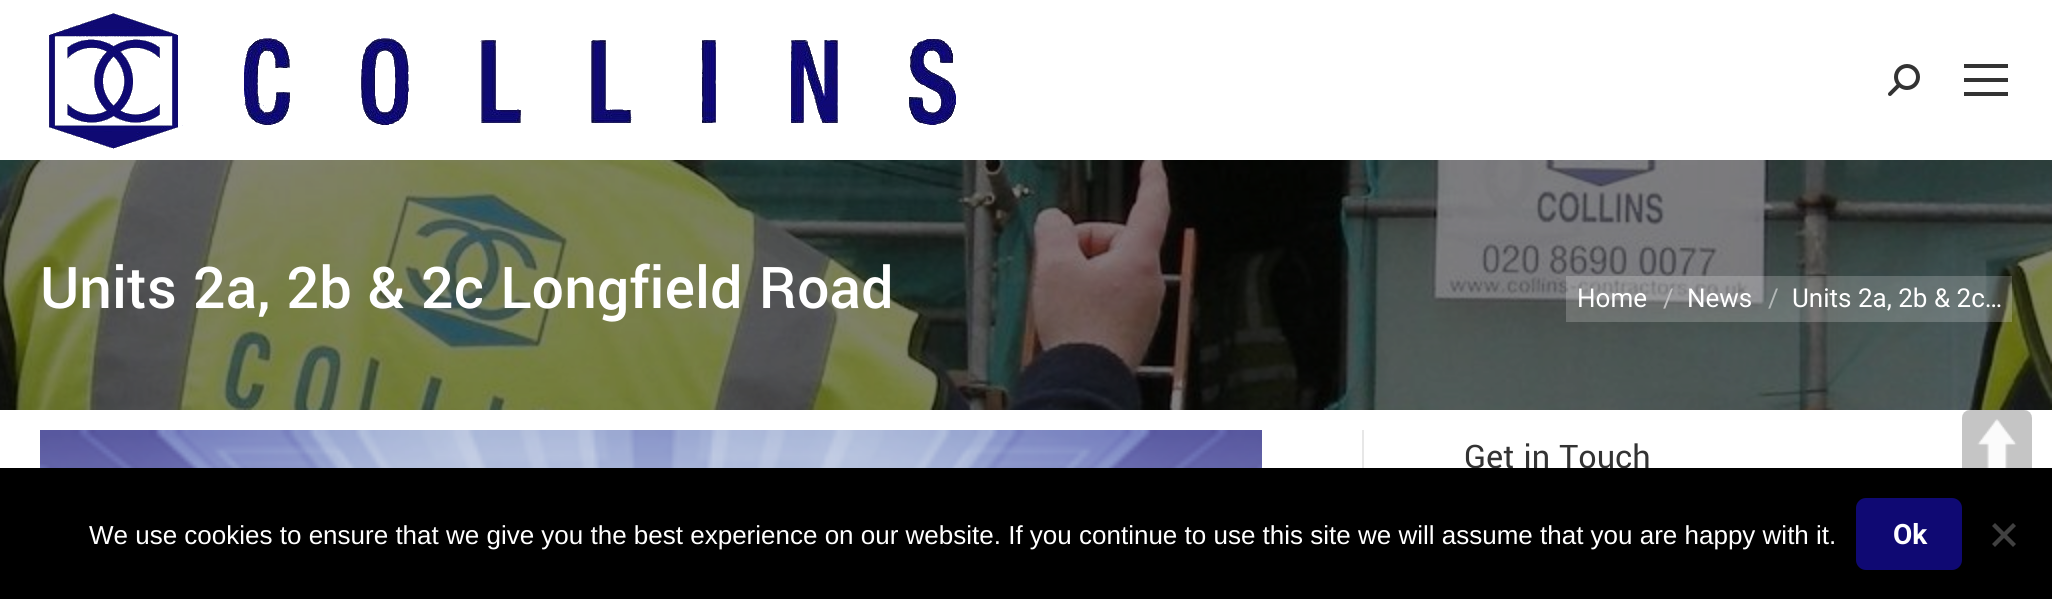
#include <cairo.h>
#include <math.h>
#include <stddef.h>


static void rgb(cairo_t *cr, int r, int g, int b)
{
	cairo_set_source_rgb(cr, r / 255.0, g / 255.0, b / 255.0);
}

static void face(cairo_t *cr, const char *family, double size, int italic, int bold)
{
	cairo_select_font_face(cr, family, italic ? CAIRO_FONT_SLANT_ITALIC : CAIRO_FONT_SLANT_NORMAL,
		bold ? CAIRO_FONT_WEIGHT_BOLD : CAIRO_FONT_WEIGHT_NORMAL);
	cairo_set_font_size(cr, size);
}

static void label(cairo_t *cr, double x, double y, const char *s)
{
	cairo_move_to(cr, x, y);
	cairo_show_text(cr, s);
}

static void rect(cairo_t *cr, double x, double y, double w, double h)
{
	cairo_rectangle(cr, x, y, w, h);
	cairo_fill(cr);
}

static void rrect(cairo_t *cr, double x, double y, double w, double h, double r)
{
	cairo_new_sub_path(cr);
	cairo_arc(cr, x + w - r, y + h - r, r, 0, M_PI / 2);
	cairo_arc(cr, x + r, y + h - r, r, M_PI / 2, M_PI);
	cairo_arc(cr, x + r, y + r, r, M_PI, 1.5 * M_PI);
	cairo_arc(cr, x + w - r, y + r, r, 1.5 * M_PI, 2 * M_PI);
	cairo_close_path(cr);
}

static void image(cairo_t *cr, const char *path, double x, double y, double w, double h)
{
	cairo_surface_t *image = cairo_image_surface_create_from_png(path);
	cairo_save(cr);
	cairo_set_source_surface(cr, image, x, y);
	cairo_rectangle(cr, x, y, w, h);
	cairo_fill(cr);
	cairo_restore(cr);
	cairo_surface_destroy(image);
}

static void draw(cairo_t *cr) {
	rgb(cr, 255, 255, 255);
	cairo_paint(cr);
	image(cr, "image0.png", 49, 13, 907, 136);
	image(cr, "image1.png", 1888, 64, 32, 32);
	rgb(cr, 51, 51, 51);
	rect(cr, 1964, 64, 44, 4);
	rect(cr, 1964, 78, 44, 4);
	rect(cr, 1964, 92, 44, 4);
	image(cr, "image2.png", 0, 160, 2052, 250);
	face(cr, "Yantramanav Medium", 64, 0, 0);
	rgb(cr, 255, 255, 255);
	label(cr, 40, 308, "Units 2a, 2b & 2c Longfield Road");
	cairo_set_source_rgba(cr, 1, 1, 1, 0.2);
	rect(cr, 1566, 276, 446, 46);
	face(cr, "Roboto", 26, 0, 0);
	rgb(cr, 255, 255, 255);
	label(cr, 1577, 307, "Home");
	rgb(cr, 192, 192, 193);
	label(cr, 1663, 307, "/");
	rgb(cr, 255, 255, 255);
	label(cr, 1687, 307, "News");
	rgb(cr, 178, 183, 182);
	label(cr, 1768, 307, "/");
	rgb(cr, 255, 255, 255);
	label(cr, 1792, 307, "Units 2a, 2b & 2c…");
	image(cr, "image3.png", 40, 430, 1222, 38);
	rgb(cr, 231, 231, 231);
	rect(cr, 1362, 430, 2, 38);
	face(cr, "Yantramanav", 36, 0, 0);
	rgb(cr, 51, 51, 51);
	label(cr, 1464, 468, "Get in Touch");
	rgb(cr, 250, 250, 250);
	rrect(cr, 1962, 410, 70, 70, 8);
	cairo_fill(cr);
	image(cr, "image4.png", 1962, 410, 70, 58);
	rgb(cr, 0, 0, 0);
	rect(cr, 0, 468, 2052, 131);
	face(cr, "Liberation Sans", 26, 0, 0);
	rgb(cr, 255, 255, 255);
	label(cr, 89, 544, "We use cookies to ensure that we give you the best experience on our website. If you continue to use this site we will assume that you are happy with it.");
	rgb(cr, 15, 9, 115);
	rrect(cr, 1856, 498, 106, 72, 10);
	cairo_fill(cr);
	face(cr, "Roboto", 28, 0, 1);
	rgb(cr, 255, 255, 255);
	label(cr, 1893, 544, "Ok");
	rgb(cr, 64, 64, 64);
	cairo_new_path(cr);
	cairo_move_to(cr, 2013, 523);
	cairo_line_to(cr, 2016, 526);
	cairo_line_to(cr, 1995, 547);
	cairo_line_to(cr, 1992, 544);
	cairo_close_path(cr);
	cairo_fill(cr);
	cairo_new_path(cr);
	cairo_move_to(cr, 1992, 526);
	cairo_line_to(cr, 1995, 523);
	cairo_line_to(cr, 2016, 544);
	cairo_line_to(cr, 2013, 547);
	cairo_close_path(cr);
	cairo_fill(cr);
}

int main(void) {
	cairo_surface_t *surface = cairo_image_surface_create(CAIRO_FORMAT_RGB24, 2052, 599);
	cairo_t *cr = cairo_create(surface);
	cairo_font_options_t *options = cairo_font_options_create();
	cairo_font_options_set_hint_metrics(options, CAIRO_HINT_METRICS_OFF);
	cairo_font_options_set_hint_style(options, CAIRO_HINT_STYLE_NONE);
	cairo_set_font_options(cr, options);
	cairo_set_miter_limit(cr, 4);
	draw(cr);
	cairo_surface_write_to_png(surface, "render.png");
	cairo_font_options_destroy(options);
	cairo_destroy(cr);
	cairo_surface_destroy(surface);
	return 0;
}
